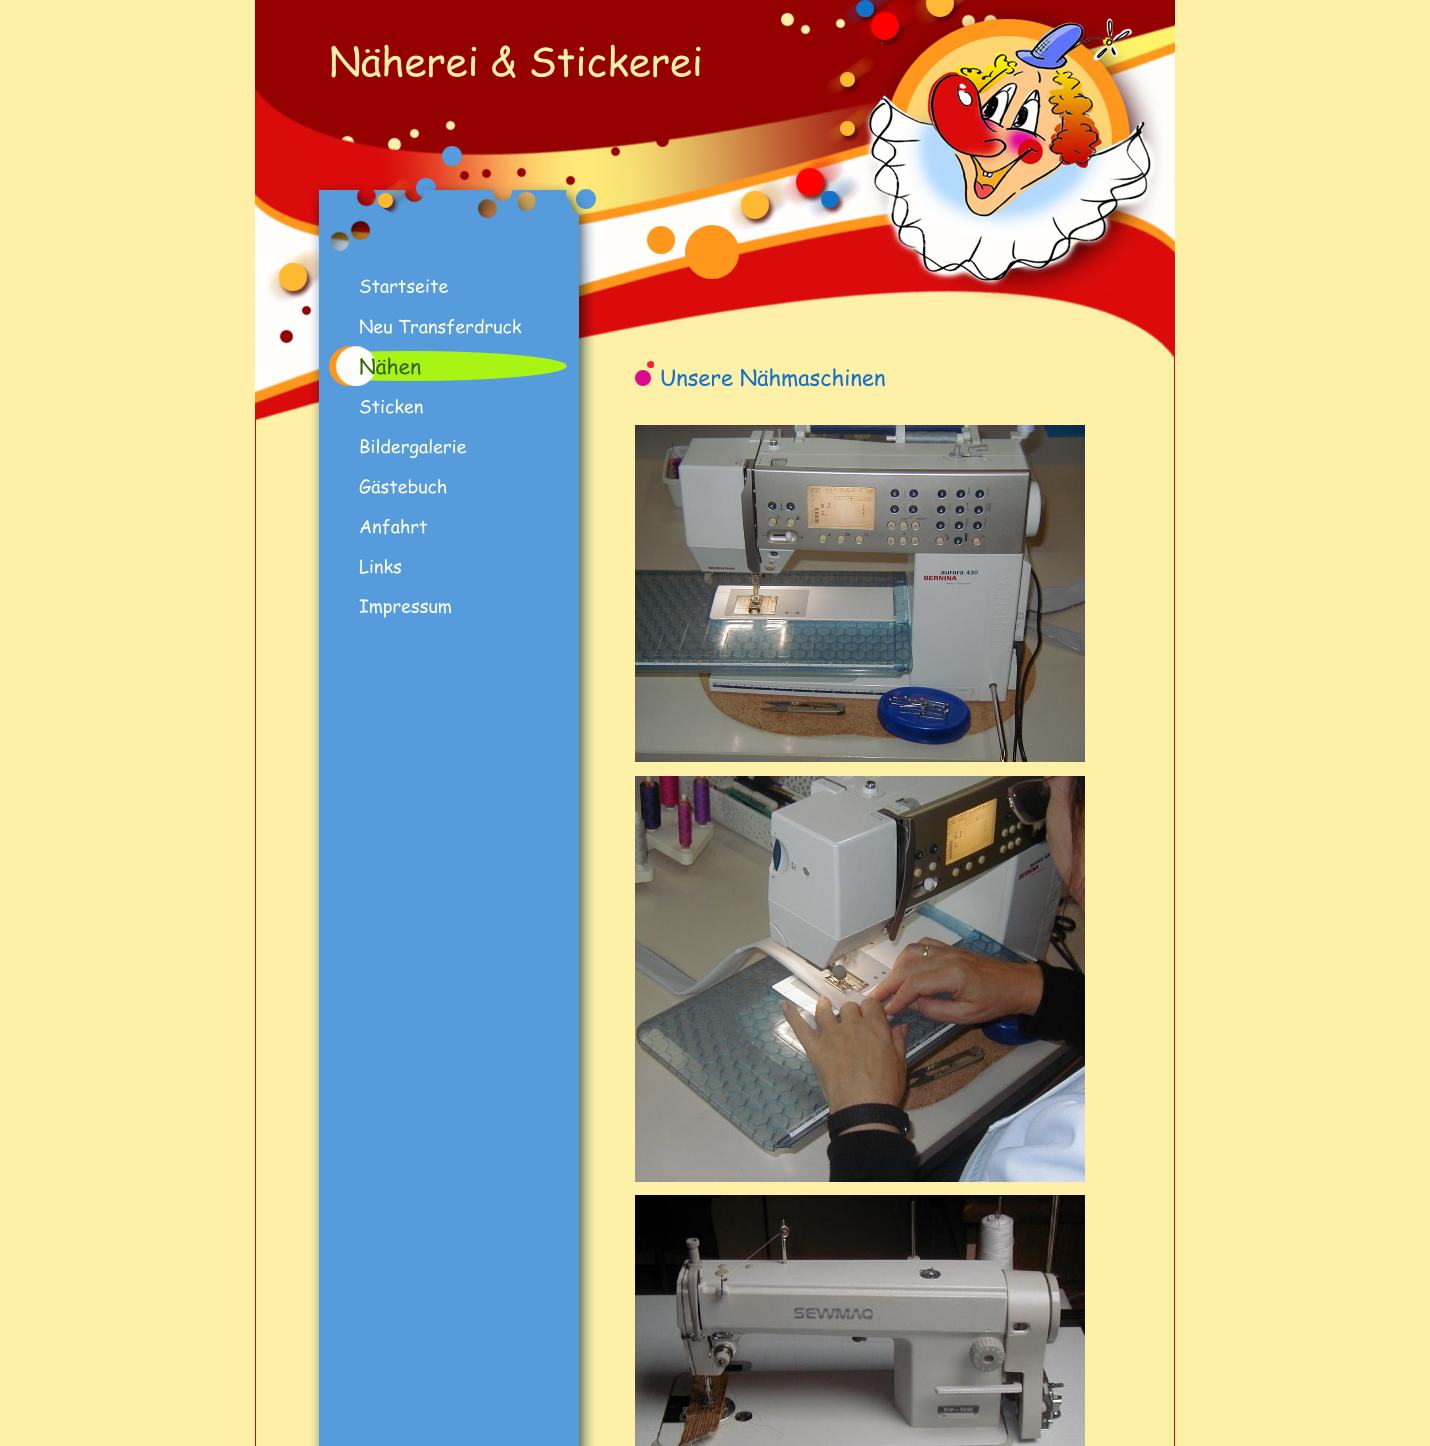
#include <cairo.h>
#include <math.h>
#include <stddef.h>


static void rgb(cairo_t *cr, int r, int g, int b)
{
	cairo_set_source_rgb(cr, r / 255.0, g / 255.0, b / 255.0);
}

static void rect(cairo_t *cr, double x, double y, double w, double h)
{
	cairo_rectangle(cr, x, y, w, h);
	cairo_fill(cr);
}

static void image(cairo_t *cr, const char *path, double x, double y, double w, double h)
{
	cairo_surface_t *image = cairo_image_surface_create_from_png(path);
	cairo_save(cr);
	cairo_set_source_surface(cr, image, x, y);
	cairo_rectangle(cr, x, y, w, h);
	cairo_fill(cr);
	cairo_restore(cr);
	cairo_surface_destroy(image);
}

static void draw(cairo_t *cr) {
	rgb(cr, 255, 240, 168);
	cairo_paint(cr);
	image(cr, "image0.png", 255, 0, 562, 24);
	image(cr, "image1.png", 817, 0, 358, 266);
	image(cr, "image2.png", 255, 24, 64, 242);
	image(cr, "image3.png", 319, 24, 498, 73);
	image(cr, "image4.png", 319, 97, 498, 134);
	image(cr, "image5.png", 319, 231, 454, 35);
	image(cr, "image6.png", 773, 231, 44, 35);
	image(cr, "image7.png", 255, 421, 64, 1025);
	image(cr, "image8.png", 255, 266, 64, 155);
	rgb(cr, 86, 155, 219);
	rect(cr, 319, 266, 260, 1180);
	image(cr, "image9.png", 360, 279, 88, 15);
	image(cr, "image10.png", 360, 318, 162, 17);
	image(cr, "image11.png", 329, 346, 238, 40);
	image(cr, "image12.png", 360, 398, 63, 16);
	image(cr, "image13.png", 360, 438, 107, 20);
	image(cr, "image14.png", 359, 479, 88, 15);
	image(cr, "image15.png", 360, 519, 67, 16);
	image(cr, "image16.png", 359, 559, 43, 15);
	image(cr, "image17.png", 359, 599, 93, 19);
	image(cr, "image18.png", 579, 266, 596, 1180);
	image(cr, "image19.png", 579, 266, 595, 76);
	image(cr, "image20.png", 1158, 342, 16, 17);
	image(cr, "image21.png", 635, 361, 250, 26);
	image(cr, "image22.png", 635, 425, 450, 337);
	image(cr, "image23.png", 635, 776, 450, 406);
	image(cr, "image24.png", 635, 1195, 450, 251);
}

int main(void) {
	cairo_surface_t *surface = cairo_image_surface_create(CAIRO_FORMAT_RGB24, 1430, 1446);
	cairo_t *cr = cairo_create(surface);
	cairo_font_options_t *options = cairo_font_options_create();
	cairo_font_options_set_hint_metrics(options, CAIRO_HINT_METRICS_OFF);
	cairo_font_options_set_hint_style(options, CAIRO_HINT_STYLE_NONE);
	cairo_set_font_options(cr, options);
	cairo_set_miter_limit(cr, 4);
	draw(cr);
	cairo_surface_write_to_png(surface, "render.png");
	cairo_font_options_destroy(options);
	cairo_destroy(cr);
	cairo_surface_destroy(surface);
	return 0;
}
